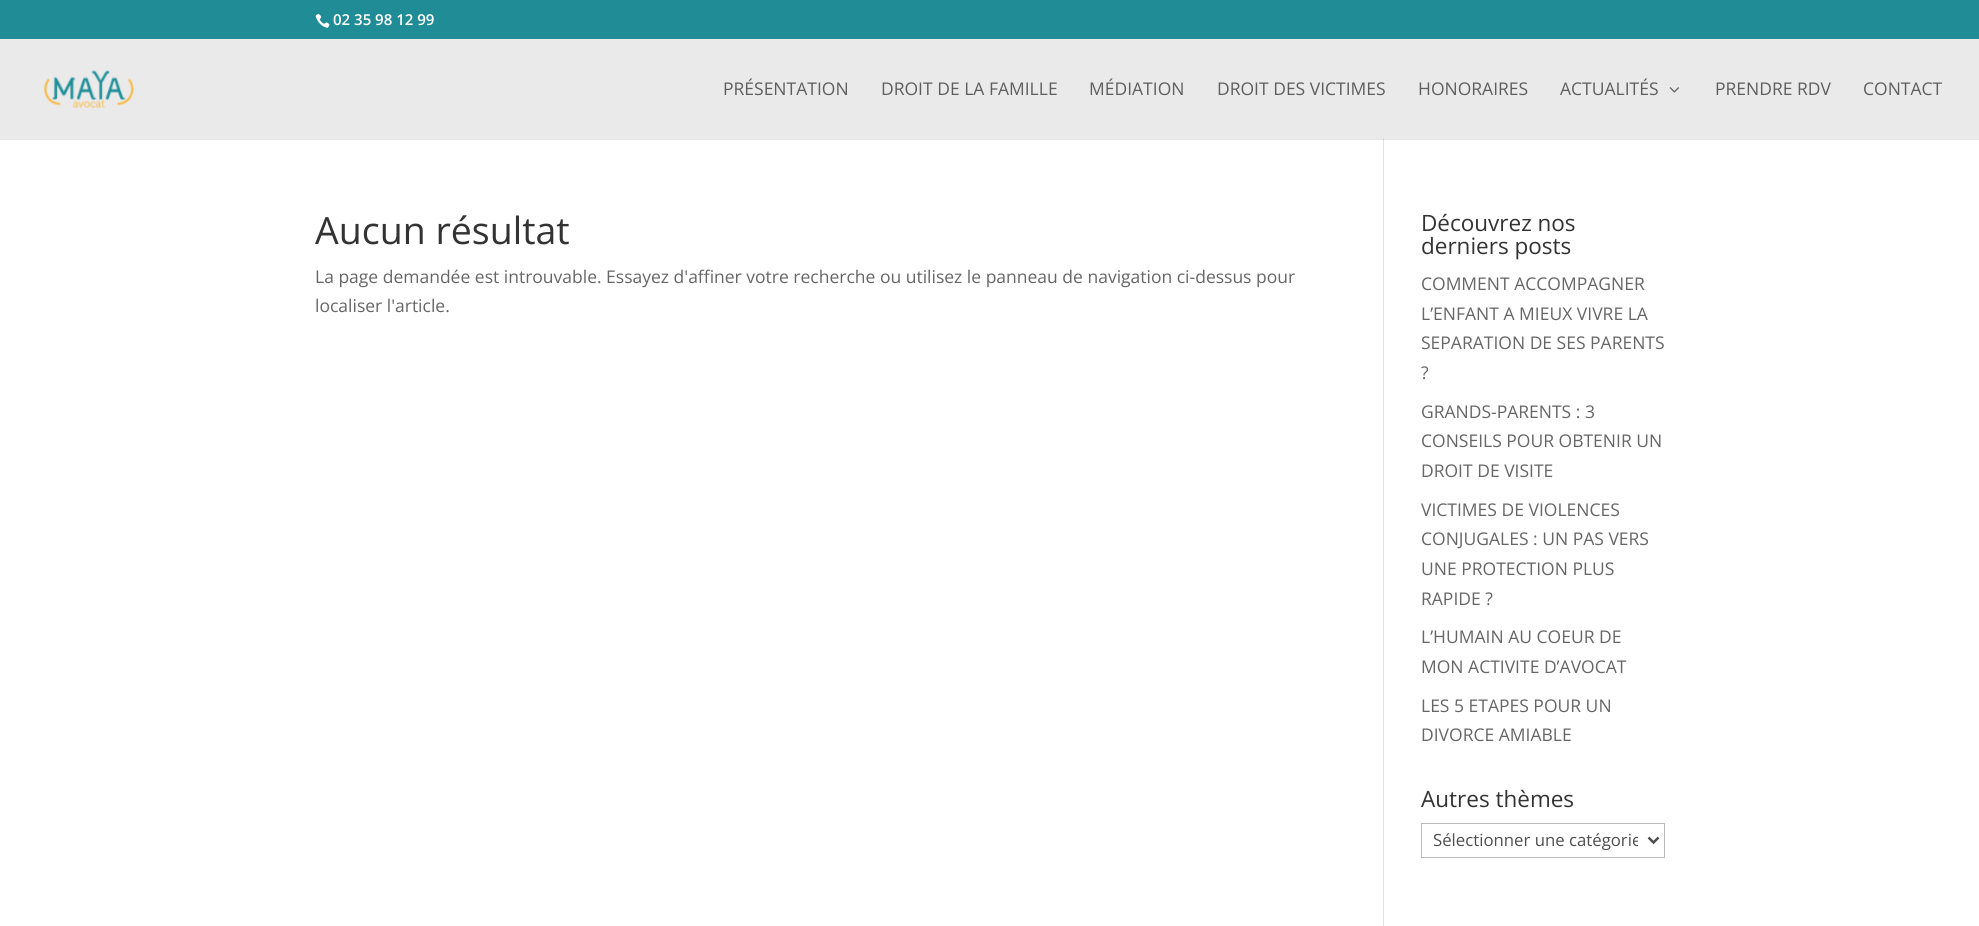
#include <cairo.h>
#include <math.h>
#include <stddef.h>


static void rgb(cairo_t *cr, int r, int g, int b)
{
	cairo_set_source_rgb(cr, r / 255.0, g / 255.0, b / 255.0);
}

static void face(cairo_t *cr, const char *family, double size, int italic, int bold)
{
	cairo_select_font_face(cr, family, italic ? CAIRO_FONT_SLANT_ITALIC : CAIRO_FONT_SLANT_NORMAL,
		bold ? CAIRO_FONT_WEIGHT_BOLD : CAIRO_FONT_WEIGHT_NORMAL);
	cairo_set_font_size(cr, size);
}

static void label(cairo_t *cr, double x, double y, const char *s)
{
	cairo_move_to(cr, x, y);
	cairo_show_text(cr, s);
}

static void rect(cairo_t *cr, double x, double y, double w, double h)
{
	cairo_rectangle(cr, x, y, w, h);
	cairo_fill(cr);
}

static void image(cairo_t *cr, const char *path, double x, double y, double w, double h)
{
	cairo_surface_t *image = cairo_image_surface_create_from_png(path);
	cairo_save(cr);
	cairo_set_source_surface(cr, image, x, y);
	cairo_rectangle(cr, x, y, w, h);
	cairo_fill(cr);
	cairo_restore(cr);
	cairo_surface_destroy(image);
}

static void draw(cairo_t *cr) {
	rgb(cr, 255, 255, 255);
	cairo_paint(cr);
	rgb(cr, 230, 230, 230);
	rect(cr, 0, 139, 1979, 1);
	rgb(cr, 32, 140, 149);
	rect(cr, 0, 0, 1979, 39);
	image(cr, "image0.png", 315, 14, 15, 14);
	face(cr, "Open Sans SemiBold", 15, 0, 0);
	rgb(cr, 255, 255, 255);
	label(cr, 333, 25, "02 35 98 12 99");
	rgb(cr, 234, 234, 234);
	rect(cr, 0, 39, 1979, 100);
	image(cr, "image1.png", 44, 70, 90, 38);
	face(cr, "Open Sans", 17.5, 0, 0);
	rgb(cr, 94, 94, 94);
	label(cr, 723, 95, "PRÉSENTATION");
	label(cr, 881, 95, "DROIT DE LA FAMILLE");
	label(cr, 1089, 95, "MÉDIATION");
	label(cr, 1217, 95, "DROIT DES VICTIMES");
	label(cr, 1418, 95, "HONORAIRES");
	label(cr, 1560, 95, "ACTUALITÉS");
	image(cr, "image2.png", 1669, 87, 10, 6);
	label(cr, 1715, 95, "PRENDRE RDV");
	label(cr, 1863, 95, "CONTACT");
	rgb(cr, 226, 226, 226);
	rect(cr, 1383, 139, 1, 787);
	rgb(cr, 203, 203, 203);
	rect(cr, 1383, 139, 1, 1);
	face(cr, "Open Sans", 37.5, 0, 0);
	rgb(cr, 51, 51, 51);
	label(cr, 315, 244, "Aucun résultat");
	face(cr, "Open Sans", 17.5, 0, 0);
	rgb(cr, 102, 102, 102);
	label(cr, 315, 283, "La page demandée est introuvable. Essayez d'affiner votre recherche ou utilisez le panneau de navigation ci-dessus pour");
	label(cr, 315, 312, "localiser l'article.");
	face(cr, "Open Sans", 22.5, 0, 0);
	rgb(cr, 51, 51, 51);
	label(cr, 1421, 231, "Découvrez nos");
	label(cr, 1421, 254, "derniers posts");
	face(cr, "Open Sans", 17.5, 0, 0);
	rgb(cr, 102, 102, 102);
	label(cr, 1421, 290, "COMMENT ACCOMPAGNER");
	label(cr, 1421, 320, "L’ENFANT A MIEUX VIVRE LA");
	label(cr, 1421, 349, "SEPARATION DE SES PARENTS");
	label(cr, 1421, 379, "?");
	label(cr, 1421, 418, "GRANDS-PARENTS : 3");
	label(cr, 1421, 447, "CONSEILS POUR OBTENIR UN");
	label(cr, 1421, 477, "DROIT DE VISITE");
	label(cr, 1421, 516, "VICTIMES DE VIOLENCES");
	label(cr, 1421, 545, "CONJUGALES : UN PAS VERS");
	label(cr, 1421, 575, "UNE PROTECTION PLUS");
	label(cr, 1421, 605, "RAPIDE ?");
	label(cr, 1421, 643, "L’HUMAIN AU COEUR DE");
	label(cr, 1421, 673, "MON ACTIVITE D’AVOCAT");
	label(cr, 1421, 712, "LES 5 ETAPES POUR UN");
	label(cr, 1421, 741, "DIVORCE AMIABLE");
	face(cr, "Open Sans", 22.5, 0, 0);
	rgb(cr, 51, 51, 51);
	label(cr, 1421, 807, "Autres thèmes");
	cairo_rectangle(cr, 1421.5, 823.5, 243, 34);
	rgb(cr, 187, 187, 187);
	cairo_set_line_width(cr, 1);
	cairo_stroke(cr);
	cairo_new_path(cr);
	cairo_move_to(cr, 1648.5, 837.5);
	cairo_line_to(cr, 1653.5, 842.5);
	cairo_line_to(cr, 1658.5, 837.5);
	rgb(cr, 78, 78, 78);
	cairo_set_line_width(cr, 2.5);
	cairo_stroke(cr);
	cairo_save(cr);
	cairo_rectangle(cr, 1434, 828, 204, 25);
	cairo_clip(cr);
	face(cr, "Open Sans", 16.75, 0, 0);
	label(cr, 1433, 846, "Sélectionner une catégorie");
	cairo_restore(cr);
}

int main(void) {
	cairo_surface_t *surface = cairo_image_surface_create(CAIRO_FORMAT_RGB24, 1979, 926);
	cairo_t *cr = cairo_create(surface);
	cairo_font_options_t *options = cairo_font_options_create();
	cairo_font_options_set_hint_metrics(options, CAIRO_HINT_METRICS_OFF);
	cairo_font_options_set_hint_style(options, CAIRO_HINT_STYLE_NONE);
	cairo_set_font_options(cr, options);
	cairo_set_miter_limit(cr, 4);
	draw(cr);
	cairo_surface_write_to_png(surface, "render.png");
	cairo_font_options_destroy(options);
	cairo_destroy(cr);
	cairo_surface_destroy(surface);
	return 0;
}
